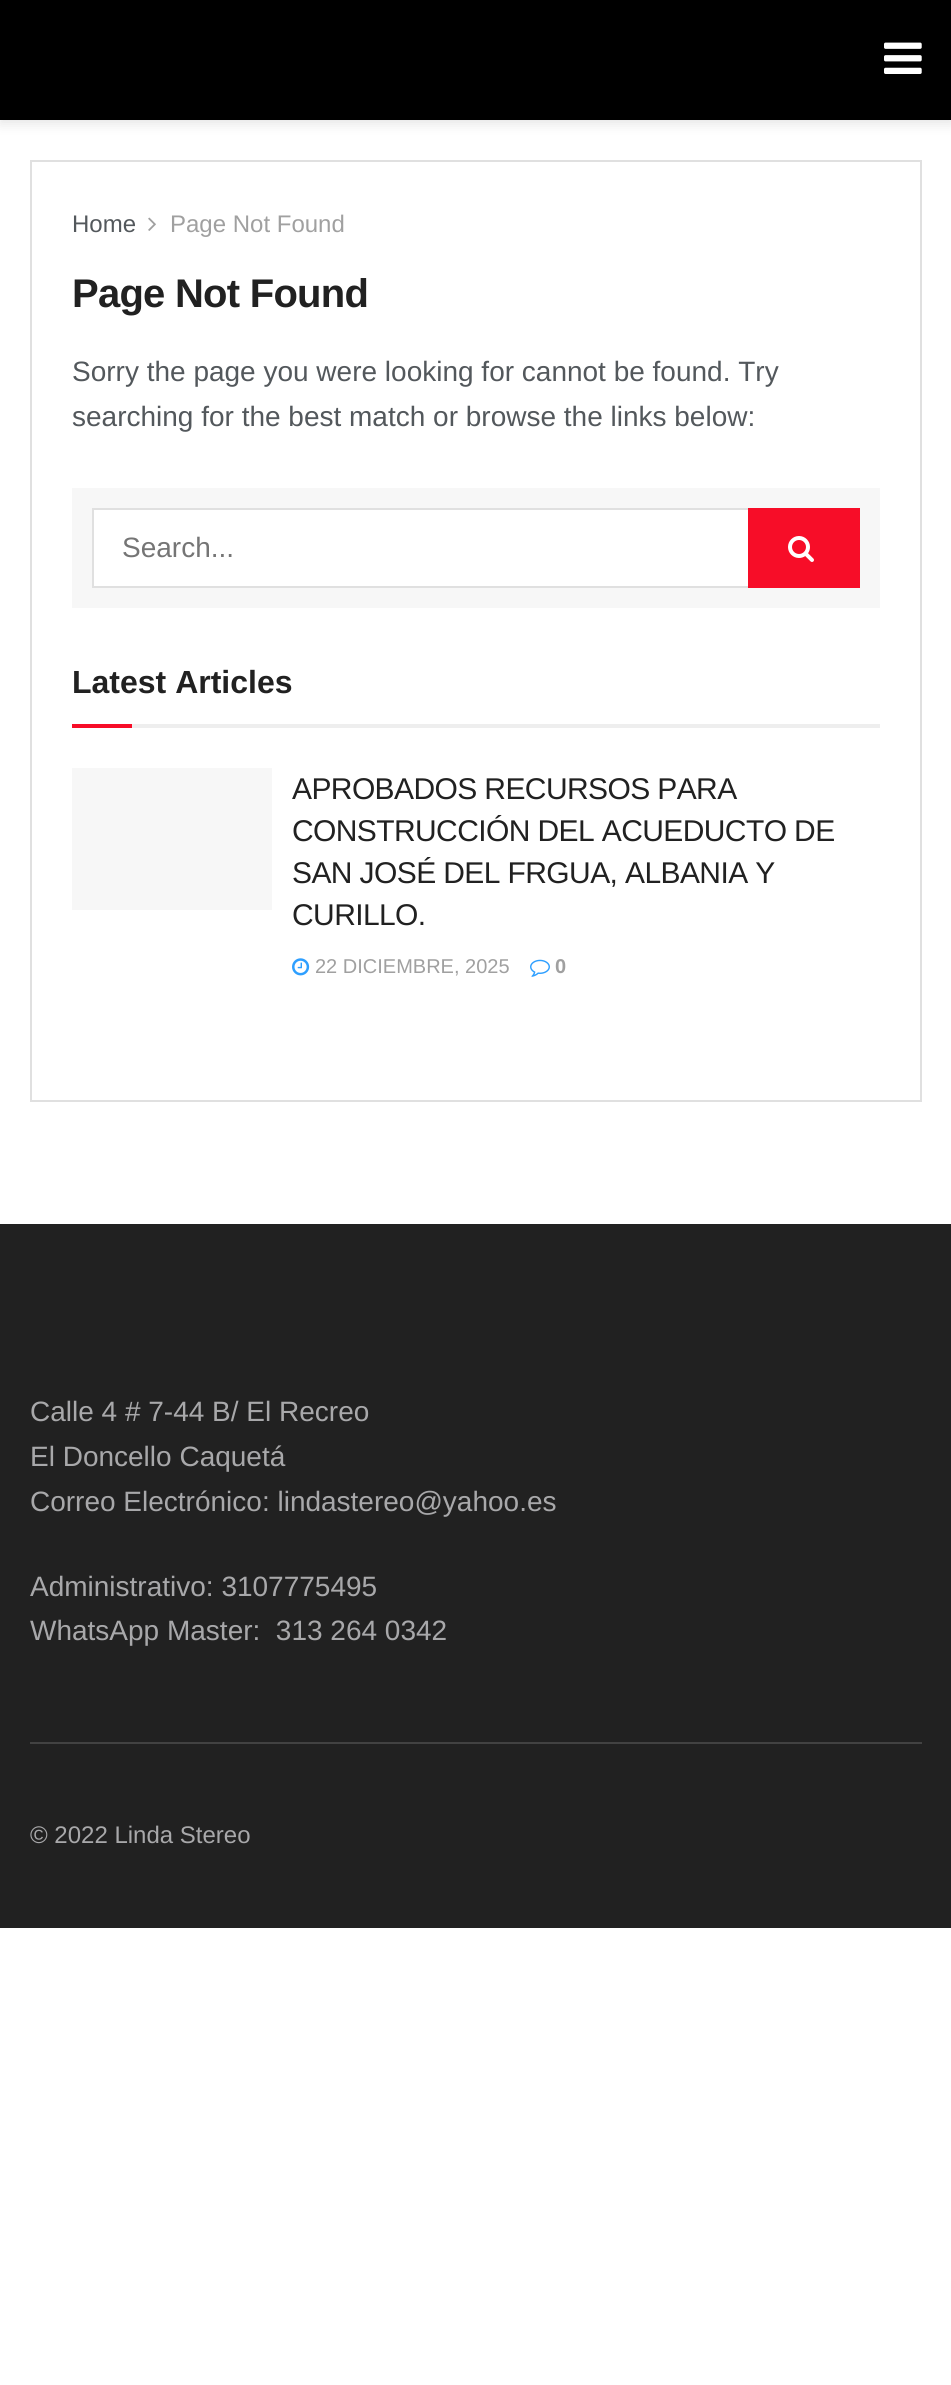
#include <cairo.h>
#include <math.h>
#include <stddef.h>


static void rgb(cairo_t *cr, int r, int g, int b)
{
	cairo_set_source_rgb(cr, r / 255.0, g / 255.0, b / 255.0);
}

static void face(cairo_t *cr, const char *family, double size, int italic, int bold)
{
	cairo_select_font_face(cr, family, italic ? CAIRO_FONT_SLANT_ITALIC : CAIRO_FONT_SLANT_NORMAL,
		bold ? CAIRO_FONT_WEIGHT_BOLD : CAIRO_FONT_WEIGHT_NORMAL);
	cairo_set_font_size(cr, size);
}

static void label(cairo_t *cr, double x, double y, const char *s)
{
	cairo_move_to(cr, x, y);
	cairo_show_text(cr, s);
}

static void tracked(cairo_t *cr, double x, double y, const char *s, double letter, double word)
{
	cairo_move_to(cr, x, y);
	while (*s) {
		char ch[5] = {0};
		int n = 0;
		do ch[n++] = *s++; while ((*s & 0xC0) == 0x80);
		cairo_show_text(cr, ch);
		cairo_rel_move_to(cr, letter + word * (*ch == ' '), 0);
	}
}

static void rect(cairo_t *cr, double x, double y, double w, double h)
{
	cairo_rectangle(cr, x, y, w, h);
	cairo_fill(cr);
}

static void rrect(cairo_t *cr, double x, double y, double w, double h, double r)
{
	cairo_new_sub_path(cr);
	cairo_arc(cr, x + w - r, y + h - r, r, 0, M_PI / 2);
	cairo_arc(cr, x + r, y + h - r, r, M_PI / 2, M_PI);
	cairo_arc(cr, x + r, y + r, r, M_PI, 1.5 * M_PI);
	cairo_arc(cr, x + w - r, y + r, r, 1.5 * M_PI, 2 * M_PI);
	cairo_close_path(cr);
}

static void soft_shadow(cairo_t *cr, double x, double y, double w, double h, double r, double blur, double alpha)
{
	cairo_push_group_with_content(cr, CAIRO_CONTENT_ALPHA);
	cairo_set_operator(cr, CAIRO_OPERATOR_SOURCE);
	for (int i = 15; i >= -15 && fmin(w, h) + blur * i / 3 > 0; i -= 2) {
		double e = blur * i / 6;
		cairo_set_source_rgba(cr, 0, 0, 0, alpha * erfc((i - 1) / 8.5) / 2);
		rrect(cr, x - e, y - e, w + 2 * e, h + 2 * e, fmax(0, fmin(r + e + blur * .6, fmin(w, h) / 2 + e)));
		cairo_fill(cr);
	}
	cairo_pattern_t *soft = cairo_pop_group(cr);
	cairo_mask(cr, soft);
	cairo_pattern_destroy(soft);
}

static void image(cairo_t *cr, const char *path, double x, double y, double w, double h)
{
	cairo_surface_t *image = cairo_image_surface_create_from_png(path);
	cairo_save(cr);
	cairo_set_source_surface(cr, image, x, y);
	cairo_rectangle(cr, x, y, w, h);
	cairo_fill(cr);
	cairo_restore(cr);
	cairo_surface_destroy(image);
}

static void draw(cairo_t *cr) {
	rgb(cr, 255, 255, 255);
	cairo_paint(cr);
	rgb(cr, 0, 0, 0);
	soft_shadow(cr, 0, 4, 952, 120, 0, 6, 0.1);
	rgb(cr, 0, 0, 0);
	rect(cr, 0, 0, 951, 120);
	image(cr, "image0.png", 884, 42, 38, 32);
	cairo_rectangle(cr, 31, 161, 890, 940);
	rgb(cr, 224, 224, 224);
	cairo_stroke(cr);
	face(cr, "Liberation Sans", 24, 0, 0);
	rgb(cr, 83, 88, 92);
	label(cr, 72, 232, "Home");
	image(cr, "image1.png", 148, 217, 8, 14);
	rgb(cr, 160, 160, 160);
	label(cr, 170, 232, "Page Not Found");
	face(cr, "Liberation Sans", 40, 0, 1);
	rgb(cr, 33, 33, 33);
	tracked(cr, 72, 307, "Page Not Found", -0.75, 0);
	face(cr, "Liberation Sans", 28, 0, 0);
	rgb(cr, 83, 88, 92);
	label(cr, 72, 381, "Sorry the page you were looking for cannot be found. Try");
	label(cr, 72, 426, "searching for the best match or browse the links below:");
	rgb(cr, 247, 247, 247);
	rect(cr, 72, 488, 808, 120);
	rgb(cr, 255, 255, 255);
	rect(cr, 94, 510, 654, 76);
	cairo_rectangle(cr, 93, 509, 766, 78);
	rgb(cr, 224, 224, 224);
	cairo_stroke(cr);
	rgb(cr, 117, 117, 117);
	label(cr, 122, 557, "Search...");
	rgb(cr, 247, 13, 40);
	rect(cr, 748, 508, 112, 80);
	image(cr, "image2.png", 788, 536, 26, 26);
	rgb(cr, 238, 238, 238);
	rect(cr, 132, 724, 748, 4);
	face(cr, "Liberation Sans", 32, 0, 1);
	rgb(cr, 33, 33, 33);
	label(cr, 72, 693, "Latest Articles");
	rgb(cr, 247, 13, 40);
	rect(cr, 72, 724, 60, 4);
	rgb(cr, 247, 247, 247);
	rect(cr, 72, 768, 200, 142);
	face(cr, "Liberation Sans", 30, 0, 0);
	rgb(cr, 33, 33, 33);
	tracked(cr, 292, 799, "APROBADOS RECURSOS PARA", -0.6, 0);
	tracked(cr, 292, 841, "CONSTRUCCIÓN DEL ACUEDUCTO DE", -0.6, 0);
	tracked(cr, 292, 883, "SAN JOSÉ DEL FRGUA, ALBANIA Y", -0.6, 0);
	tracked(cr, 292, 925, "CURILLO.", -0.6, 0);
	image(cr, "image3.png", 292, 958, 18, 18);
	face(cr, "Liberation Sans", 20, 0, 0);
	rgb(cr, 160, 160, 160);
	label(cr, 315, 973, "22 DICIEMBRE, 2025");
	image(cr, "image4.png", 530, 959, 20, 18);
	face(cr, "Liberation Sans", 20, 0, 1);
	label(cr, 555, 973, "0");
	rgb(cr, 33, 33, 33);
	rect(cr, 0, 1224, 951, 704);
	face(cr, "Liberation Sans", 28, 0, 0);
	rgb(cr, 168, 168, 170);
	label(cr, 30, 1421, "Calle 4 # 7-44 B/ El Recreo");
	label(cr, 30, 1466, "El Doncello Caquetá");
	label(cr, 30, 1511, "Correo Electrónico: lindastereo@yahoo.es");
	label(cr, 30, 1596, "Administrativo: 3107775495");
	label(cr, 30, 1640, "WhatsApp Master:  313 264 0342");
	rgb(cr, 66, 66, 66);
	rect(cr, 30, 1742, 892, 2);
	face(cr, "Liberation Sans", 24, 0, 0);
	rgb(cr, 168, 168, 170);
	label(cr, 30, 1843, "© 2022 Linda Stereo");
}

int main(void) {
	cairo_surface_t *surface = cairo_image_surface_create(CAIRO_FORMAT_RGB24, 951, 2385);
	cairo_t *cr = cairo_create(surface);
	cairo_font_options_t *options = cairo_font_options_create();
	cairo_font_options_set_hint_metrics(options, CAIRO_HINT_METRICS_OFF);
	cairo_font_options_set_hint_style(options, CAIRO_HINT_STYLE_NONE);
	cairo_set_font_options(cr, options);
	cairo_set_miter_limit(cr, 4);
	draw(cr);
	cairo_surface_write_to_png(surface, "render.png");
	cairo_font_options_destroy(options);
	cairo_destroy(cr);
	cairo_surface_destroy(surface);
	return 0;
}
